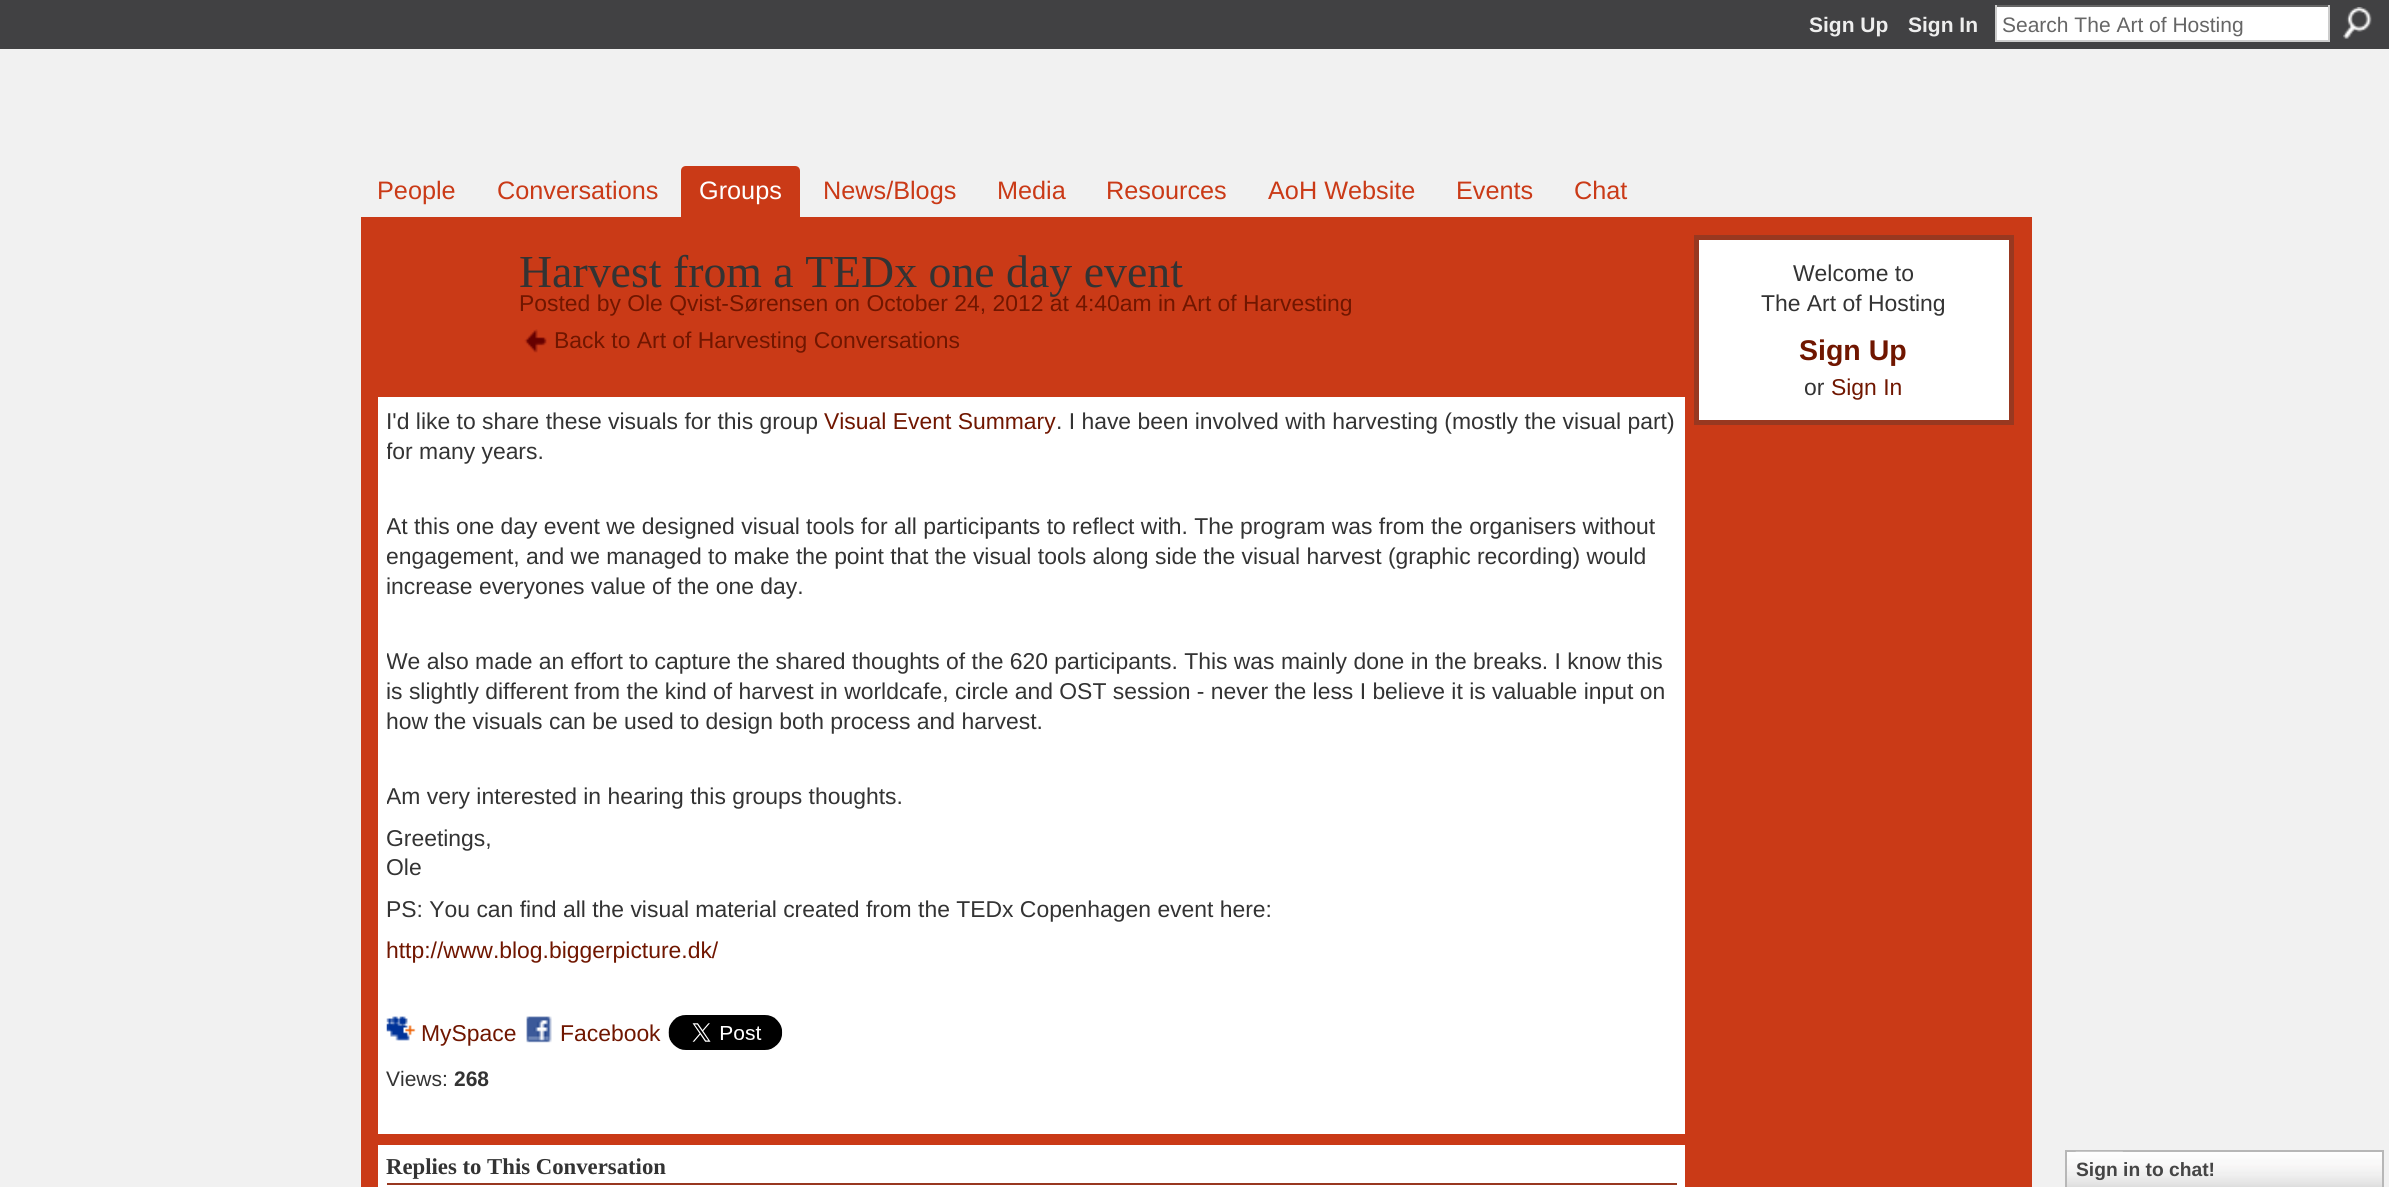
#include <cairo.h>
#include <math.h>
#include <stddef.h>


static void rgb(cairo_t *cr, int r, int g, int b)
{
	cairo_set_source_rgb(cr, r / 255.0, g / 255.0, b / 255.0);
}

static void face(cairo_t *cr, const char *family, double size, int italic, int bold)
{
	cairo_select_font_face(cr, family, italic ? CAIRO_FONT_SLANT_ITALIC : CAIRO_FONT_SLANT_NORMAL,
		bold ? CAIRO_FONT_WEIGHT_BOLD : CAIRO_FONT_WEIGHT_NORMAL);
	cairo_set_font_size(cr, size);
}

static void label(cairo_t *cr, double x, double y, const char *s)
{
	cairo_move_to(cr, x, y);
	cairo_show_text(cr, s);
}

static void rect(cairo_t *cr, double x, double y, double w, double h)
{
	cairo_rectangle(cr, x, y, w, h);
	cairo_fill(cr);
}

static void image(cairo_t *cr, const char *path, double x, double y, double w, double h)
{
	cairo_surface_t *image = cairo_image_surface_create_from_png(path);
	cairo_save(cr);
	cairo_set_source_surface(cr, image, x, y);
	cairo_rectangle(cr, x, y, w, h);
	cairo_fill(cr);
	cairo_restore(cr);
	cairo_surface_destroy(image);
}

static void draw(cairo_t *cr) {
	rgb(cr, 241, 241, 241);
	cairo_paint(cr);
	rgb(cr, 65, 65, 67);
	rect(cr, 0, 0, 2389, 49);
	face(cr, "Liberation Sans", 21, 0, 1);
	rgb(cr, 238, 238, 238);
	label(cr, 1809, 32, "Sign Up");
	label(cr, 1908, 32, "Sign In");
	rgb(cr, 255, 255, 255);
	rect(cr, 1997, 7, 331, 33);
	rgb(cr, 102, 102, 102);
	rect(cr, 1995, 5, 334, 2);
	rgb(cr, 204, 204, 204);
	rect(cr, 2328, 5, 2, 37);
	rect(cr, 1995, 40, 334, 2);
	rect(cr, 1995, 5, 2, 37);
	face(cr, "Liberation Sans", 21, 0, 0);
	rgb(cr, 102, 102, 102);
	label(cr, 2002, 32, "Search The Art of Hosting");
	image(cr, "image0.png", 2343, 7, 29, 32);
	face(cr, "Liberation Sans", 25.25, 0, 0);
	rgb(cr, 202, 58, 23);
	label(cr, 377, 199, "People");
	label(cr, 497, 199, "Conversations");
	cairo_new_path(cr);
	cairo_move_to(cr, 686, 166);
	cairo_line_to(cr, 795, 166);
	cairo_curve_to(cr, 798, 166, 800, 168, 800, 171);
	cairo_line_to(cr, 800, 217);
	cairo_line_to(cr, 681, 217);
	cairo_line_to(cr, 681, 171);
	cairo_curve_to(cr, 681, 168, 683, 166, 686, 166);
	cairo_close_path(cr);
	cairo_fill(cr);
	rgb(cr, 255, 255, 255);
	label(cr, 699, 199, "Groups");
	rgb(cr, 202, 58, 23);
	label(cr, 823, 199, "News/Blogs");
	label(cr, 997, 199, "Media");
	label(cr, 1106, 199, "Resources");
	label(cr, 1268, 199, "AoH Website");
	label(cr, 1456, 199, "Events");
	label(cr, 1574, 199, "Chat");
	rect(cr, 361, 217, 1671, 970);
	face(cr, "Liberation Serif", 45.8, 0, 0);
	rgb(cr, 51, 51, 51);
	label(cr, 519, 287, "Harvest from a TEDx one day event");
	face(cr, "Liberation Sans", 22.9, 0, 0);
	rgb(cr, 112, 22, 0);
	label(cr, 519, 311, "Posted by Ole Qvist-Sørensen on October 24, 2012 at 4:40am in");
	label(cr, 1182, 311, "Art of Harvesting");
	image(cr, "image1.png", 524, 329, 23, 24);
	label(cr, 554, 348, "Back to Art of Harvesting Conversations");
	rgb(cr, 255, 255, 255);
	rect(cr, 378, 397, 1307, 737);
	rgb(cr, 51, 51, 51);
	label(cr, 386, 429, "I'd like to share these visuals for this group");
	rgb(cr, 112, 22, 0);
	label(cr, 824, 429, "Visual Event Summary");
	rgb(cr, 51, 51, 51);
	label(cr, 1056, 429, ". I have been involved with harvesting (mostly the visual part)");
	cairo_save(cr);
	cairo_rectangle(cr, 387, 406, 1290, 593);
	cairo_clip(cr);
	label(cr, 386, 459, "for many years.");
	label(cr, 386, 534, "At this one day event we designed visual tools for all participants to reflect with. The program was from the organisers without");
	cairo_restore(cr);
	label(cr, 386, 564, "engagement, and we managed to make the point that the visual tools along side the visual harvest (graphic recording) would");
	label(cr, 386, 594, "increase everyones value of the one day.");
	cairo_save(cr);
	cairo_rectangle(cr, 387, 406, 1290, 593);
	cairo_clip(cr);
	label(cr, 386, 669, "We also made an effort to capture the shared thoughts of the 620 participants. This was mainly done in the breaks. I know this");
	cairo_restore(cr);
	label(cr, 386, 699, "is slightly different from the kind of harvest in worldcafe, circle and OST session - never the less I believe it is valuable input on");
	label(cr, 386, 729, "how the visuals can be used to design both process and harvest.");
	cairo_save(cr);
	cairo_rectangle(cr, 387, 406, 1290, 593);
	cairo_clip(cr);
	label(cr, 386, 804, "Am very interested in hearing this groups thoughts.");
	cairo_restore(cr);
	label(cr, 386, 846, "Greetings,");
	label(cr, 386, 875, "Ole");
	label(cr, 386, 917, "PS: You can find all the visual material created from the TEDx Copenhagen event here:");
	rgb(cr, 112, 22, 0);
	label(cr, 386, 958, "http://www.blog.biggerpicture.dk/");
	image(cr, "image2.png", 386, 1016, 30, 25);
	label(cr, 421, 1041, "MySpace");
	image(cr, "image3.png", 526, 1016, 26, 27);
	label(cr, 560, 1041, "Facebook");
	image(cr, "image4.png", 668, 1015, 115, 35);
	face(cr, "Liberation Sans", 21, 0, 0);
	rgb(cr, 51, 51, 51);
	label(cr, 386, 1086, "Views:");
	face(cr, "Liberation Sans", 21, 0, 1);
	label(cr, 454, 1086, "268");
	rgb(cr, 255, 255, 255);
	rect(cr, 378, 1145, 1307, 42);
	face(cr, "Liberation Serif", 22.75, 0, 1);
	rgb(cr, 51, 51, 51);
	label(cr, 386, 1174, "Replies to This Conversation");
	rgb(cr, 152, 56, 32);
	rect(cr, 387, 1183, 1290, 2);
	rgb(cr, 255, 255, 255);
	cairo_rectangle(cr, 1696.5, 237.5, 315, 185);
	cairo_fill_preserve(cr);
	rgb(cr, 152, 56, 32);
	cairo_set_line_width(cr, 5);
	cairo_stroke(cr);
	face(cr, "Liberation Sans", 22.9, 0, 0);
	rgb(cr, 51, 51, 51);
	label(cr, 1793, 281, "Welcome to");
	label(cr, 1761, 311, "The Art of Hosting");
	face(cr, "Liberation Sans", 28.5, 0, 1);
	rgb(cr, 112, 22, 0);
	label(cr, 1799, 360, "Sign Up");
	face(cr, "Liberation Sans", 22.9, 0, 0);
	rgb(cr, 51, 51, 51);
	label(cr, 1804, 395, "or");
	rgb(cr, 112, 22, 0);
	label(cr, 1831, 395, "Sign In");
	image(cr, "image5.png", 2067, 1152, 315, 35);
	cairo_rectangle(cr, 2066, 1151, 317, 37);
	rgb(cr, 183, 183, 183);
	cairo_set_line_width(cr, 2);
	cairo_stroke(cr);
	image(cr, "image6.png", 2075, 1151, 48, 1);
	face(cr, "Liberation Sans", 19.25, 0, 1);
	rgb(cr, 69, 69, 69);
	label(cr, 2076, 1176, "Sign in to chat!");
}

int main(void) {
	cairo_surface_t *surface = cairo_image_surface_create(CAIRO_FORMAT_RGB24, 2389, 1187);
	cairo_t *cr = cairo_create(surface);
	cairo_font_options_t *options = cairo_font_options_create();
	cairo_font_options_set_hint_metrics(options, CAIRO_HINT_METRICS_OFF);
	cairo_font_options_set_hint_style(options, CAIRO_HINT_STYLE_NONE);
	cairo_set_font_options(cr, options);
	cairo_set_miter_limit(cr, 4);
	draw(cr);
	cairo_surface_write_to_png(surface, "render.png");
	cairo_font_options_destroy(options);
	cairo_destroy(cr);
	cairo_surface_destroy(surface);
	return 0;
}
